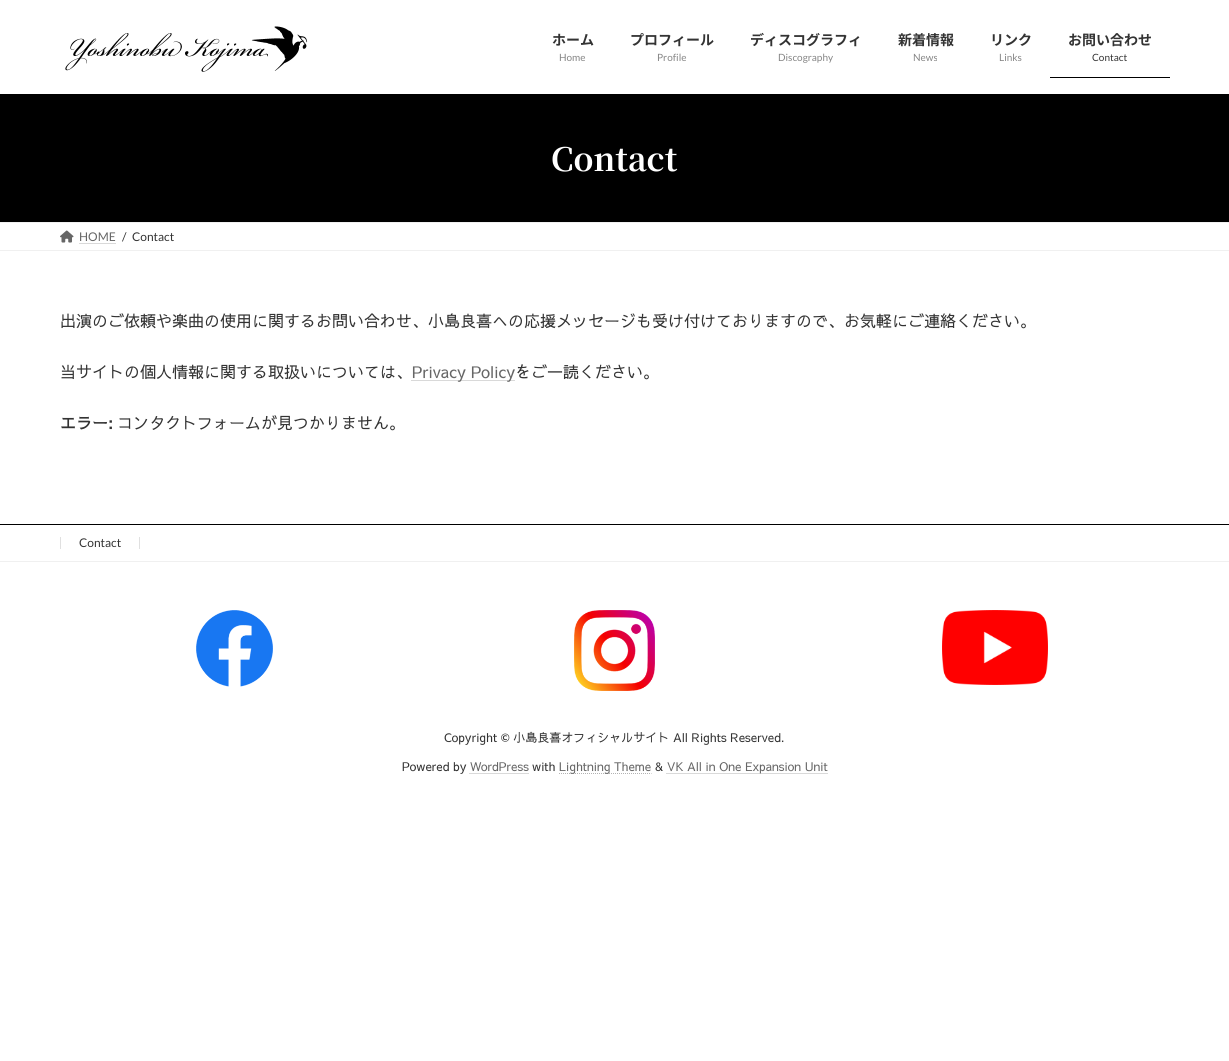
#include <cairo.h>
#include <math.h>
#include <stddef.h>


static void rgb(cairo_t *cr, int r, int g, int b)
{
	cairo_set_source_rgb(cr, r / 255.0, g / 255.0, b / 255.0);
}

static void face(cairo_t *cr, const char *family, double size, int italic, int bold)
{
	cairo_select_font_face(cr, family, italic ? CAIRO_FONT_SLANT_ITALIC : CAIRO_FONT_SLANT_NORMAL,
		bold ? CAIRO_FONT_WEIGHT_BOLD : CAIRO_FONT_WEIGHT_NORMAL);
	cairo_set_font_size(cr, size);
}

static void label(cairo_t *cr, double x, double y, const char *s)
{
	cairo_move_to(cr, x, y);
	cairo_show_text(cr, s);
}

static void rect(cairo_t *cr, double x, double y, double w, double h)
{
	cairo_rectangle(cr, x, y, w, h);
	cairo_fill(cr);
}

static void image(cairo_t *cr, const char *path, double x, double y, double w, double h)
{
	cairo_surface_t *image = cairo_image_surface_create_from_png(path);
	cairo_save(cr);
	cairo_set_source_surface(cr, image, x, y);
	cairo_rectangle(cr, x, y, w, h);
	cairo_fill(cr);
	cairo_restore(cr);
	cairo_surface_destroy(image);
}

static void draw(cairo_t *cr) {
	rgb(cr, 255, 255, 255);
	cairo_paint(cr);
	image(cr, "image0.png", 65, 26, 243, 46);
	face(cr, "Noto Sans JP", 14, 0, 1);
	rgb(cr, 51, 51, 51);
	label(cr, 552, 45, "ホーム");
	face(cr, "Lato", 10, 0, 0);
	rgb(cr, 133, 133, 133);
	label(cr, 559, 61, "Home");
	face(cr, "Noto Sans JP", 14, 0, 1);
	rgb(cr, 51, 51, 51);
	label(cr, 630, 45, "プロフィール");
	face(cr, "Lato", 10, 0, 0);
	rgb(cr, 133, 133, 133);
	label(cr, 657, 61, "Profile");
	face(cr, "Noto Sans JP", 14, 0, 1);
	rgb(cr, 51, 51, 51);
	label(cr, 750, 45, "ディスコグラフィ");
	face(cr, "Lato", 10, 0, 0);
	rgb(cr, 133, 133, 133);
	label(cr, 778, 61, "Discography");
	face(cr, "Noto Sans JP", 14, 0, 1);
	rgb(cr, 51, 51, 51);
	label(cr, 898, 45, "新着情報");
	face(cr, "Lato", 10, 0, 0);
	rgb(cr, 133, 133, 133);
	label(cr, 913, 61, "News");
	face(cr, "Noto Sans JP", 14, 0, 1);
	rgb(cr, 51, 51, 51);
	label(cr, 990, 45, "リンク");
	face(cr, "Lato", 10, 0, 0);
	rgb(cr, 133, 133, 133);
	label(cr, 999, 61, "Links");
	face(cr, "Noto Sans JP", 14, 0, 1);
	rgb(cr, 51, 51, 51);
	label(cr, 1068, 45, "お問い合わせ");
	face(cr, "Lato", 10, 0, 0);
	label(cr, 1092, 61, "Contact");
	rgb(cr, 0, 0, 0);
	rect(cr, 1050, 77, 120, 1);
	rect(cr, 0, 94, 1229, 128);
	face(cr, "Noto Serif JP ExtraLight", 32, 0, 0);
	rgb(cr, 255, 255, 255);
	label(cr, 551, 171, "Contact");
	rgb(cr, 240, 240, 240);
	rect(cr, 0, 222, 1229, 1);
	rect(cr, 0, 250, 1229, 1);
	image(cr, "image1.png", 60, 230, 14, 13);
	face(cr, "Lato", 12, 0, 0);
	rgb(cr, 102, 102, 102);
	label(cr, 79, 241, "HOME");
	cairo_new_path(cr);
	cairo_move_to(cr, 79.5, 243.5);
	cairo_line_to(cr, 116, 243.5);
	rgb(cr, 179, 179, 179);
	cairo_set_line_width(cr, 1);
	cairo_set_dash(cr, (double[]){1, 1}, 2, 0);
	cairo_stroke(cr);
	rgb(cr, 51, 51, 51);
	label(cr, 122, 241, "/");
	label(cr, 132, 241, "Contact");
	face(cr, "Sawarabi Gothic", 16, 0, 0);
	label(cr, 60, 327, "出演のご依頼や楽曲の使用に関するお問い合わせ、小島良喜への応援メッセージも受け付けておりますので、お気軽にご連絡ください。");
	label(cr, 60, 378, "当サイトの個人情報に関する取扱いについては、");
	cairo_new_path(cr);
	cairo_move_to(cr, 411.5, 380.5);
	cairo_line_to(cr, 515, 380.5);
	rgb(cr, 179, 179, 179);
	cairo_stroke(cr);
	rgb(cr, 102, 102, 102);
	label(cr, 412, 378, "Privacy Policy");
	rgb(cr, 51, 51, 51);
	label(cr, 515, 378, "をご一読ください。");
	face(cr, "Sawarabi Gothic", 16, 0, 1);
	label(cr, 60, 429, "エラー:");
	face(cr, "Sawarabi Gothic", 16, 0, 0);
	label(cr, 117, 429, "コンタクトフォームが見つかりません。");
	rgb(cr, 0, 0, 0);
	rect(cr, 0, 524, 1229, 1);
	rgb(cr, 240, 240, 240);
	rect(cr, 0, 561, 1229, 1);
	rgb(cr, 224, 224, 224);
	rect(cr, 139, 537, 1, 12);
	rect(cr, 60, 537, 1, 12);
	face(cr, "Lato", 12, 0, 0);
	rgb(cr, 51, 51, 51);
	label(cr, 79, 547, "Contact");
	image(cr, "image2.png", 196, 610, 77, 77);
	image(cr, "image3.png", 574, 610, 81, 81);
	image(cr, "image4.png", 942, 610, 106, 75);
	face(cr, "Sawarabi Gothic", 12, 0, 0);
	label(cr, 444, 742, "Copyright © 小島良喜オフィシャルサイト All Rights Reserved.");
	label(cr, 402, 771, "Powered by");
	rgb(cr, 102, 102, 102);
	label(cr, 470, 771, "WordPress");
	cairo_new_path(cr);
	cairo_move_to(cr, 469.5, 773.5);
	cairo_line_to(cr, 528.5, 773.5);
	rgb(cr, 179, 179, 179);
	cairo_stroke(cr);
	rgb(cr, 51, 51, 51);
	label(cr, 532, 771, "with");
	cairo_new_path(cr);
	cairo_move_to(cr, 559, 773.5);
	cairo_line_to(cr, 651.5, 773.5);
	rgb(cr, 179, 179, 179);
	cairo_stroke(cr);
	rgb(cr, 102, 102, 102);
	label(cr, 559, 771, "Lightning Theme");
	rgb(cr, 51, 51, 51);
	label(cr, 655, 771, "&");
	cairo_new_path(cr);
	cairo_move_to(cr, 666.5, 773.5);
	cairo_line_to(cr, 827.5, 773.5);
	rgb(cr, 179, 179, 179);
	cairo_stroke(cr);
	rgb(cr, 102, 102, 102);
	label(cr, 667, 771, "VK All in One Expansion Unit");
}

int main(void) {
	cairo_surface_t *surface = cairo_image_surface_create(CAIRO_FORMAT_RGB24, 1229, 1061);
	cairo_t *cr = cairo_create(surface);
	cairo_font_options_t *options = cairo_font_options_create();
	cairo_font_options_set_hint_metrics(options, CAIRO_HINT_METRICS_OFF);
	cairo_font_options_set_hint_style(options, CAIRO_HINT_STYLE_NONE);
	cairo_set_font_options(cr, options);
	cairo_set_miter_limit(cr, 4);
	draw(cr);
	cairo_surface_write_to_png(surface, "render.png");
	cairo_font_options_destroy(options);
	cairo_destroy(cr);
	cairo_surface_destroy(surface);
	return 0;
}
